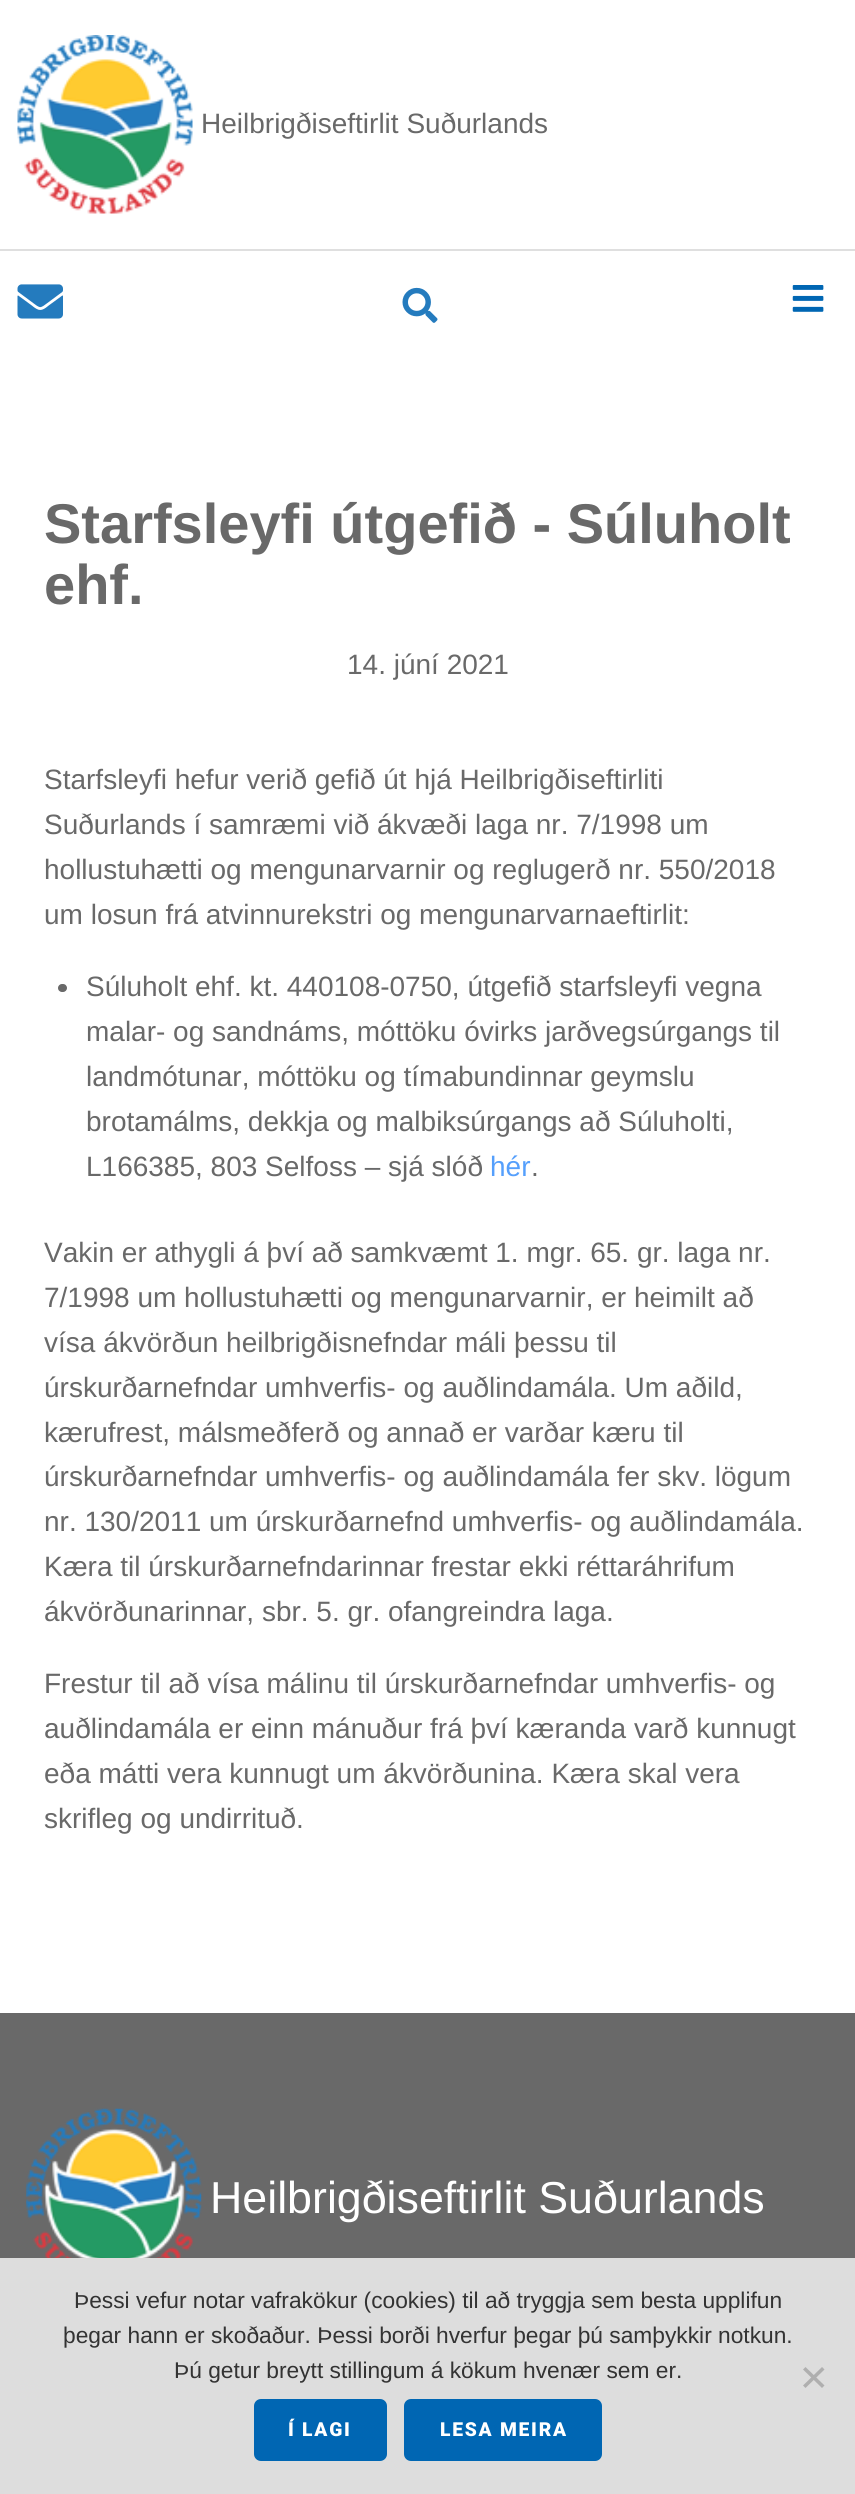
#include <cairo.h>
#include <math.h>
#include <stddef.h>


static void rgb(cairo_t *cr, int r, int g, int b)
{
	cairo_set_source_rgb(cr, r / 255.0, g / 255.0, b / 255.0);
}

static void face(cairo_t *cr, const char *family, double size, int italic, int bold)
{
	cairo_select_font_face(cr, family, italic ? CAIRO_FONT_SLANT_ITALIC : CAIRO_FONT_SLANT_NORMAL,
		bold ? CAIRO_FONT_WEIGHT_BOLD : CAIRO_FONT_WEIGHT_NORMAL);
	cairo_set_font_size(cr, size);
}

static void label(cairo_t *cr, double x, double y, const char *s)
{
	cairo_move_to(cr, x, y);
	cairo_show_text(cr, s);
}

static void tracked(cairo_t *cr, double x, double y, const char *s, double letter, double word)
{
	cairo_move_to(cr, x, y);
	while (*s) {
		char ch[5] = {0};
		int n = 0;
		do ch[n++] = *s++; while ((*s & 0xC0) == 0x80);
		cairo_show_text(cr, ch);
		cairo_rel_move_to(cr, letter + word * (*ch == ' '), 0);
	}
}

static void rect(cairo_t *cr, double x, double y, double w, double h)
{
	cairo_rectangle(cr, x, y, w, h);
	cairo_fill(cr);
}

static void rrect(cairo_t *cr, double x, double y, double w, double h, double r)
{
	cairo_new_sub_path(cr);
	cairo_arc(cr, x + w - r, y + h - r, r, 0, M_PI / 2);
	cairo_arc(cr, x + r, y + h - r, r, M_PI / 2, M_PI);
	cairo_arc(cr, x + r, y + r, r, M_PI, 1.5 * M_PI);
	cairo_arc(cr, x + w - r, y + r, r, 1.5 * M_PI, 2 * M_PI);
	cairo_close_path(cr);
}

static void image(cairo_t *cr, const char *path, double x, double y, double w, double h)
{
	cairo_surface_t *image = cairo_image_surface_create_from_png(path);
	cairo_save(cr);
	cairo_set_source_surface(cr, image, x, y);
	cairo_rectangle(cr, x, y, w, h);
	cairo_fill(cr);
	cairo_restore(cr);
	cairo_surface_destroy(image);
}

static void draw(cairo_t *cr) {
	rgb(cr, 255, 255, 255);
	cairo_paint(cr);
	rgb(cr, 223, 223, 223);
	rect(cr, 0, 249, 855, 2);
	image(cr, "image0.png", 17, 35, 176, 179);
	face(cr, "Liberation Sans", 28, 0, 0);
	rgb(cr, 105, 105, 105);
	label(cr, 201, 133, "Heilbrigðiseftirlit Suðurlands");
	image(cr, "image1.png", 17, 284, 46, 35);
	image(cr, "image2.png", 402, 287, 36, 36);
	image(cr, "image3.png", 792, 285, 32, 27);
	face(cr, "Liberation Sans", 56, 0, 1);
	label(cr, 44, 543, "Starfsleyfi útgefið - Súluholt");
	label(cr, 44, 604, "ehf.");
	face(cr, "Liberation Sans", 28, 0, 0);
	label(cr, 347, 674, "14. júní 2021");
	label(cr, 44, 789, "Starfsleyfi hefur verið gefið út hjá Heilbrigðiseftirliti");
	label(cr, 44, 834, "Suðurlands í samræmi við ákvæði laga nr. 7/1998 um");
	label(cr, 44, 879, "hollustuhætti og mengunarvarnir og reglugerð nr. 550/2018");
	label(cr, 44, 924, "um losun frá atvinnurekstri og mengunarvarnaeftirlit:");
	rrect(cr, 58, 984, 9, 8, 4);
	cairo_fill(cr);
	label(cr, 86, 996, "Súluholt ehf. kt. 440108-0750, útgefið starfsleyfi vegna");
	label(cr, 86, 1041, "malar- og sandnáms, móttöku óvirks jarðvegsúrgangs til");
	label(cr, 86, 1086, "landmótunar, móttöku og tímabundinnar geymslu");
	label(cr, 86, 1131, "brotamálms, dekkja og malbiksúrgangs að Súluholti,");
	label(cr, 86, 1176, "L166385, 803 Selfoss – sjá slóð");
	rgb(cr, 85, 159, 252);
	label(cr, 490, 1176, "hér");
	rgb(cr, 105, 105, 105);
	label(cr, 531, 1176, ".");
	label(cr, 44, 1262, "Vakin er athygli á því að samkvæmt 1. mgr. 65. gr. laga nr.");
	label(cr, 44, 1307, "7/1998 um hollustuhætti og mengunarvarnir, er heimilt að");
	label(cr, 44, 1352, "vísa ákvörðun heilbrigðisnefndar máli þessu til");
	label(cr, 44, 1397, "úrskurðarnefndar umhverfis- og auðlindamála. Um aðild,");
	label(cr, 44, 1442, "kærufrest, málsmeðferð og annað er varðar kæru til");
	label(cr, 44, 1486, "úrskurðarnefndar umhverfis- og auðlindamála fer skv. lögum");
	label(cr, 44, 1531, "nr. 130/2011 um úrskurðarnefnd umhverfis- og auðlindamála.");
	label(cr, 44, 1576, "Kæra til úrskurðarnefndarinnar frestar ekki réttaráhrifum");
	label(cr, 44, 1621, "ákvörðunarinnar, sbr. 5. gr. ofangreindra laga.");
	label(cr, 44, 1693, "Frestur til að vísa málinu til úrskurðarnefndar umhverfis- og");
	label(cr, 44, 1738, "auðlindamála er einn mánuður frá því kæranda varð kunnugt");
	label(cr, 44, 1783, "eða mátti vera kunnugt um ákvörðunina. Kæra skal vera");
	label(cr, 44, 1828, "skrifleg og undirrituð.");
	rect(cr, 0, 2013, 855, 245);
	image(cr, "image4.png", 26, 2108, 176, 150);
	face(cr, "Liberation Sans", 44.75, 0, 0);
	rgb(cr, 255, 255, 255);
	label(cr, 210, 2213, "Heilbrigðiseftirlit Suðurlands");
	rgb(cr, 221, 221, 221);
	rect(cr, 0, 2258, 855, 236);
	face(cr, "Liberation Sans", 22.75, 0, 0);
	rgb(cr, 51, 51, 51);
	label(cr, 74, 2308, "Þessi vefur notar vafrakökur (cookies) til að tryggja sem besta upplifun");
	label(cr, 63, 2343, "þegar hann er skoðaður. Þessi borði hverfur þegar þú samþykkir notkun.");
	label(cr, 174, 2378, "Þú getur breytt stillingum á kökum hvenær sem er.");
	rgb(cr, 175, 175, 175);
	cairo_new_path(cr);
	cairo_move_to(cr, 822, 2367);
	cairo_line_to(cr, 824.5, 2369.5);
	cairo_line_to(cr, 805.5, 2388);
	cairo_line_to(cr, 803, 2385.5);
	cairo_close_path(cr);
	cairo_fill(cr);
	cairo_new_path(cr);
	cairo_move_to(cr, 803, 2369.5);
	cairo_line_to(cr, 805.5, 2367);
	cairo_line_to(cr, 824.5, 2385.5);
	cairo_line_to(cr, 822, 2388);
	cairo_close_path(cr);
	cairo_fill(cr);
	rgb(cr, 0, 102, 179);
	rrect(cr, 254, 2399, 133, 62, 7);
	cairo_fill(cr);
	face(cr, "Roboto Black", 19.25, 0, 0);
	rgb(cr, 255, 255, 255);
	tracked(cr, 288, 2436, "Í LAGI", 1.75, 0);
	rgb(cr, 0, 102, 179);
	rrect(cr, 404, 2399, 198, 62, 7);
	cairo_fill(cr);
	rgb(cr, 255, 255, 255);
	tracked(cr, 440, 2436, "LESA MEIRA", 1.75, 0);
}

int main(void) {
	cairo_surface_t *surface = cairo_image_surface_create(CAIRO_FORMAT_RGB24, 855, 2494);
	cairo_t *cr = cairo_create(surface);
	cairo_font_options_t *options = cairo_font_options_create();
	cairo_font_options_set_hint_metrics(options, CAIRO_HINT_METRICS_OFF);
	cairo_font_options_set_hint_style(options, CAIRO_HINT_STYLE_NONE);
	cairo_set_font_options(cr, options);
	cairo_set_miter_limit(cr, 4);
	draw(cr);
	cairo_surface_write_to_png(surface, "render.png");
	cairo_font_options_destroy(options);
	cairo_destroy(cr);
	cairo_surface_destroy(surface);
	return 0;
}
